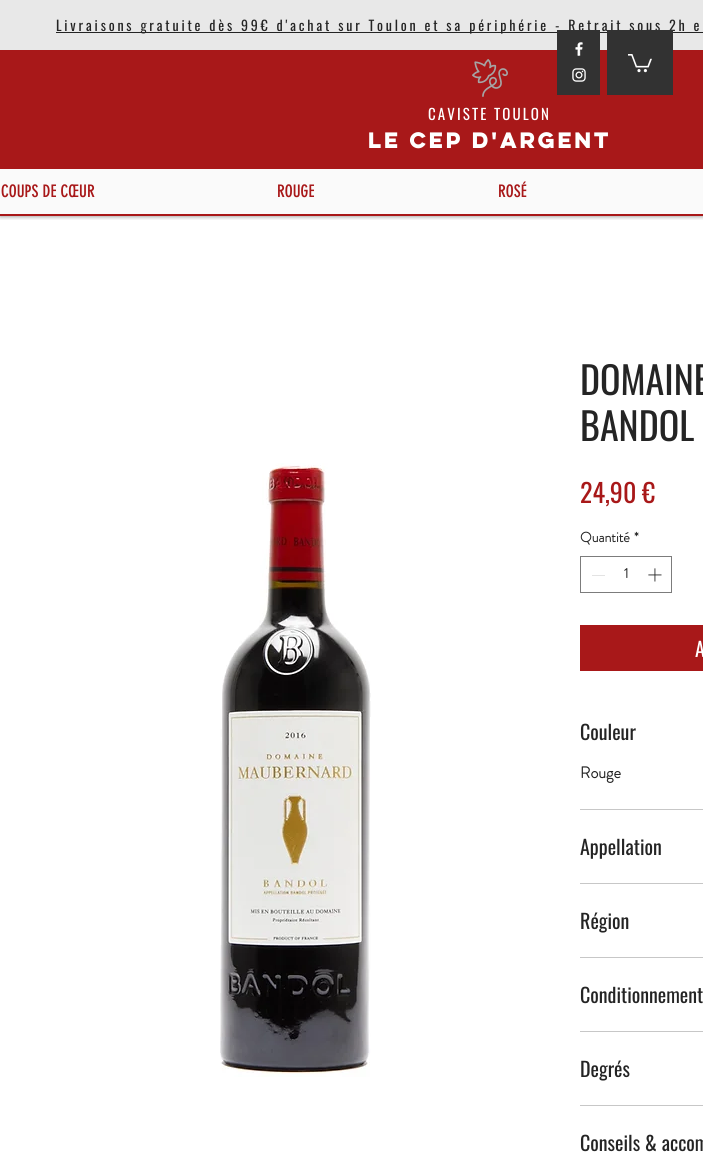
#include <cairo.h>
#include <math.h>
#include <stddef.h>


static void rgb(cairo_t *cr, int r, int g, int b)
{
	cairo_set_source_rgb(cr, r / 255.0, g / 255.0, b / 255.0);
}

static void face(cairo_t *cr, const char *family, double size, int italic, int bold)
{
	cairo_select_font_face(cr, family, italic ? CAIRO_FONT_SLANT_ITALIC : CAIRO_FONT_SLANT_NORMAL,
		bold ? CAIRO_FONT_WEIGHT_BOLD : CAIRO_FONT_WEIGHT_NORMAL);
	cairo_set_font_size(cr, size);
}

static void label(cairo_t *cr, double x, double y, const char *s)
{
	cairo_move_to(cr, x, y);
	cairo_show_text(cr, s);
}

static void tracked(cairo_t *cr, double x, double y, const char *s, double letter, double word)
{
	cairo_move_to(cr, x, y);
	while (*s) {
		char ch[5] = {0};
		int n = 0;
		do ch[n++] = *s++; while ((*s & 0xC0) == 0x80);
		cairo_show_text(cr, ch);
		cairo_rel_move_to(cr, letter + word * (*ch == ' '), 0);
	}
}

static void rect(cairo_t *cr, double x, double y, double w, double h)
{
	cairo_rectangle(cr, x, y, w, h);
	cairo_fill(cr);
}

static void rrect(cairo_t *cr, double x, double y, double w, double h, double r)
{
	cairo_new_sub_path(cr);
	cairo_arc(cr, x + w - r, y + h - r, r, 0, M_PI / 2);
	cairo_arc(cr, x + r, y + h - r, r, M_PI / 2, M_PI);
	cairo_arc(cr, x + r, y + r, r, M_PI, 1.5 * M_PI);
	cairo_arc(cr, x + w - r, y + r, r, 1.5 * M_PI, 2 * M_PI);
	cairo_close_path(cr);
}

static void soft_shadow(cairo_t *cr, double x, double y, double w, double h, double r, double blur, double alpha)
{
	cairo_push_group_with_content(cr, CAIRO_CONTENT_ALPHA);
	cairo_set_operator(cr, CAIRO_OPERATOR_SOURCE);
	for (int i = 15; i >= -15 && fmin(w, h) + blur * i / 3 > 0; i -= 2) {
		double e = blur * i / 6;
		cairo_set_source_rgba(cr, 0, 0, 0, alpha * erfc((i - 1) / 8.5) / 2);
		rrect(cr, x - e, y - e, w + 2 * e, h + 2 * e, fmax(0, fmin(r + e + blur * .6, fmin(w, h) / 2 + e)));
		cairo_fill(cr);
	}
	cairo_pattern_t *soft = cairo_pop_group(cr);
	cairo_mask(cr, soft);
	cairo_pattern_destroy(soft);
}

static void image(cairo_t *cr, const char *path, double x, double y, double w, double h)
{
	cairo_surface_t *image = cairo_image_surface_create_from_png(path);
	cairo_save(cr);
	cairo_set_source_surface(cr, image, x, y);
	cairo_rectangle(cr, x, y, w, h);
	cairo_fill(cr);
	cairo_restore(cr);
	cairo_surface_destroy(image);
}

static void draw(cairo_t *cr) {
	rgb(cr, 168, 24, 25);
	cairo_paint(cr);
	rgb(cr, 255, 255, 255);
	rect(cr, 0, 216, 703, 946);
	cairo_save(cr);
	cairo_rectangle(cr, 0, 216, 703, 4);
	cairo_clip(cr);
	rgb(cr, 0, 0, 0);
	soft_shadow(cr, 0, 0, 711, 216, 0, 2.5, 0.5);
	cairo_restore(cr);
	rgb(cr, 232, 232, 232);
	rect(cr, 0, 0, 703, 50);
	rgb(cr, 36, 36, 36);
	rect(cr, 56, 32, 647, 1);
	face(cr, "Oswald", 14, 0, 0);
	tracked(cr, 56, 31, "Livraisons gratuite dès 99€ d'achat sur Toulon et sa périphérie - Retrait sous 2h e", 2.8, 0);
	image(cr, "image0.png", 472, 59, 36, 38);
	face(cr, "Oswald", 15, 0, 0);
	rgb(cr, 255, 255, 255);
	tracked(cr, 428, 120, "CAVISTE TOULON", 2.1, 0);
	face(cr, "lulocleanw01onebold", 20, 0, 1);
	tracked(cr, 368, 148, "LE CEP D'ARGENT", -1.6, 0);
	rgb(cr, 250, 250, 250);
	rect(cr, 0, 169, 703, 45);
	face(cr, "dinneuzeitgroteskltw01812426", 17, 0, 0);
	rgb(cr, 168, 24, 25);
	label(cr, 1, 197, "COUPS DE CŒUR");
	label(cr, 277, 197, "ROUGE");
	label(cr, 498, 197, "ROSÉ");
	rgb(cr, 50, 50, 50);
	rect(cr, 557, 30, 43, 65);
	image(cr, "image1.png", 575, 42, 8, 14);
	image(cr, "image2.png", 572, 68, 14, 14);
	rect(cr, 607, 30, 66, 65);
	image(cr, "image3.png", 628, 54, 24, 19);
	image(cr, "image4.png", 220, 463, 151, 614);
	face(cr, "Oswald", 38, 0, 0);
	rgb(cr, 36, 36, 36);
	label(cr, 580, 395, "DOMAINE");
	label(cr, 580, 441, "BANDOL");
	face(cr, "Oswald", 26, 0, 0);
	rgb(cr, 168, 24, 25);
	label(cr, 580, 503, "24,90 €");
	face(cr, "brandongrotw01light", 14, 0, 1);
	rgb(cr, 36, 36, 36);
	label(cr, 580, 542, "Quantité");
	label(cr, 634, 542, "*");
	cairo_rectangle(cr, 580.5, 556.5, 91, 36);
	rgb(cr, 124, 124, 124);
	cairo_set_line_width(cr, 1);
	cairo_stroke(cr);
	rgb(cr, 227, 227, 227);
	rect(cr, 592, 575, 13, 1);
	rgb(cr, 36, 36, 36);
	label(cr, 624, 578, "1");
	image(cr, "image5.png", 648, 568, 14, 14);
	rgb(cr, 168, 24, 25);
	rect(cr, 580, 625, 123, 46);
	face(cr, "Oswald", 20, 0, 0);
	rgb(cr, 255, 255, 255);
	label(cr, 695, 657, "A");
	rgb(cr, 199, 199, 199);
	rect(cr, 580, 809, 123, 1);
	rgb(cr, 36, 36, 36);
	label(cr, 580, 740, "Couleur");
	face(cr, "brandongrotw01light", 16, 0, 1);
	label(cr, 580, 778, "Rouge");
	rgb(cr, 199, 199, 199);
	rect(cr, 580, 883, 123, 1);
	face(cr, "Oswald", 20, 0, 0);
	rgb(cr, 36, 36, 36);
	label(cr, 580, 855, "Appellation");
	rgb(cr, 199, 199, 199);
	rect(cr, 580, 957, 123, 1);
	rgb(cr, 36, 36, 36);
	label(cr, 580, 929, "Région");
	rgb(cr, 199, 199, 199);
	rect(cr, 580, 1031, 123, 1);
	rgb(cr, 36, 36, 36);
	label(cr, 580, 1003, "Conditionnement");
	rgb(cr, 199, 199, 199);
	rect(cr, 580, 1105, 123, 1);
	rgb(cr, 36, 36, 36);
	label(cr, 580, 1077, "Degrés");
	label(cr, 580, 1151, "Conseils & accom");
}

int main(void) {
	cairo_surface_t *surface = cairo_image_surface_create(CAIRO_FORMAT_RGB24, 703, 1162);
	cairo_t *cr = cairo_create(surface);
	cairo_font_options_t *options = cairo_font_options_create();
	cairo_font_options_set_hint_metrics(options, CAIRO_HINT_METRICS_OFF);
	cairo_font_options_set_hint_style(options, CAIRO_HINT_STYLE_NONE);
	cairo_set_font_options(cr, options);
	cairo_set_miter_limit(cr, 4);
	draw(cr);
	cairo_surface_write_to_png(surface, "render.png");
	cairo_font_options_destroy(options);
	cairo_destroy(cr);
	cairo_surface_destroy(surface);
	return 0;
}
